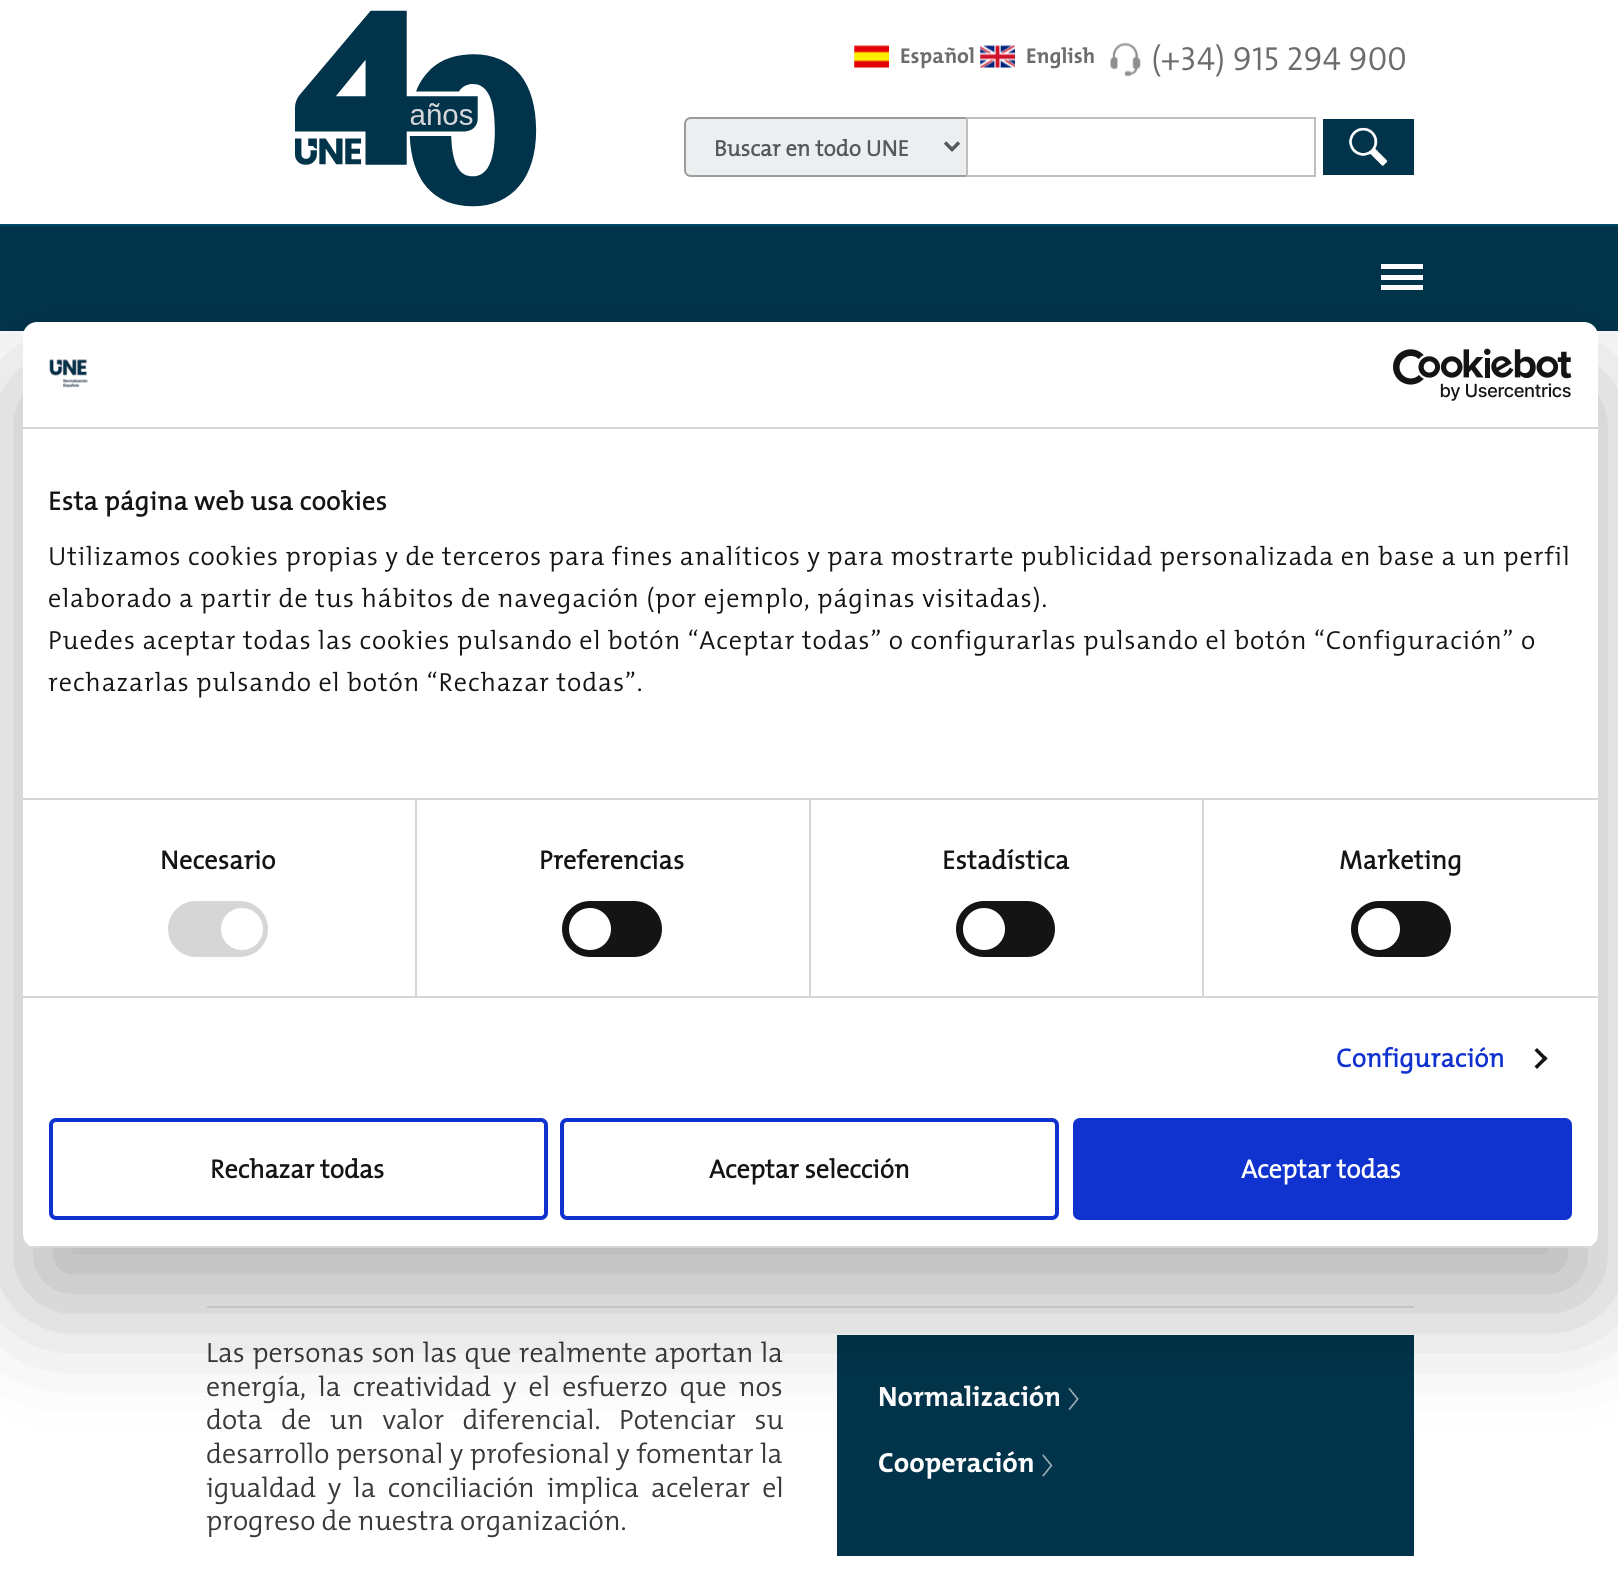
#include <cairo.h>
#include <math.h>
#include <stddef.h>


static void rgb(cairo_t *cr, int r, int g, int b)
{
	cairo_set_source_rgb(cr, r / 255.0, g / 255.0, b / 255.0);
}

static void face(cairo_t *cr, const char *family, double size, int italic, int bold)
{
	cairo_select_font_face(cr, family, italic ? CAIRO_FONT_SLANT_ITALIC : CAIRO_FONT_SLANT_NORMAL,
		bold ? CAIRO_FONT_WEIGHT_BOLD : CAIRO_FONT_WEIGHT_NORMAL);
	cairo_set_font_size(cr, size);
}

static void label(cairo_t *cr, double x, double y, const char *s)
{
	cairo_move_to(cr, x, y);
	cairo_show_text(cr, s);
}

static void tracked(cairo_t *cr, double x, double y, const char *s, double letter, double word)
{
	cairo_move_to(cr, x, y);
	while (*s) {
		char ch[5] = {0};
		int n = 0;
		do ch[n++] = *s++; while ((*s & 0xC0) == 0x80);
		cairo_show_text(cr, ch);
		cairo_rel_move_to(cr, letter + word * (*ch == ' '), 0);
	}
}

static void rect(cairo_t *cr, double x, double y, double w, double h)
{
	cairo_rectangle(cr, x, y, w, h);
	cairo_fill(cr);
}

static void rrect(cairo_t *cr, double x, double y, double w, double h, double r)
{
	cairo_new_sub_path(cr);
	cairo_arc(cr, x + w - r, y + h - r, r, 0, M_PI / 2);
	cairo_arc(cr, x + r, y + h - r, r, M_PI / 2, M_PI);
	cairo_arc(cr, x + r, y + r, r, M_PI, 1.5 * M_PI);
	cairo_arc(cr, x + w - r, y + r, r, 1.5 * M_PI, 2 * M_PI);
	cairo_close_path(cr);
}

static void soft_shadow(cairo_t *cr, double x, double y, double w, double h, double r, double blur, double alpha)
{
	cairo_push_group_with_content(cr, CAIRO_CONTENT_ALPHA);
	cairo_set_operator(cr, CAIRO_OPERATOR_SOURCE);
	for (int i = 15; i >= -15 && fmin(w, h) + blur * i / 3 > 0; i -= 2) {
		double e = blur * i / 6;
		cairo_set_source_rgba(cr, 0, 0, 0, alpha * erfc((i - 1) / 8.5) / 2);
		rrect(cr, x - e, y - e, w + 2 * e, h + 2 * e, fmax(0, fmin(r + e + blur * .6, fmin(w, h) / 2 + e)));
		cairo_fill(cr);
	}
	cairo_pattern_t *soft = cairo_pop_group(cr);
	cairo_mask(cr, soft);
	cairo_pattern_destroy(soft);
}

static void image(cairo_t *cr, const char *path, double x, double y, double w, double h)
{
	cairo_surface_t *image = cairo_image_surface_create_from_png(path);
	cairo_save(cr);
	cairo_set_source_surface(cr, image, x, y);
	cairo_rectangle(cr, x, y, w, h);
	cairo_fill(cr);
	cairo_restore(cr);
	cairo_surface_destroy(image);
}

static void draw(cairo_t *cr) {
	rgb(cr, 255, 255, 255);
	cairo_paint(cr);
	image(cr, "image0.png", 295, 10, 242, 197);
	image(cr, "image1.png", 854, 45, 35, 23);
	face(cr, "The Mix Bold", 21.5, 0, 1);
	rgb(cr, 108, 108, 108);
	label(cr, 900, 63, "Español");
	image(cr, "image2.png", 980, 45, 35, 23);
	label(cr, 1026, 63, "English");
	image(cr, "image3.png", 1110, 42, 31, 35);
	face(cr, "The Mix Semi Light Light", 33.5, 0, 0);
	label(cr, 1151, 70, "(+34) 915 294 900");
	rgb(cr, 236, 238, 239);
	cairo_new_path(cr);
	cairo_move_to(cr, 691, 117);
	cairo_line_to(cr, 966, 117);
	cairo_line_to(cr, 966, 177);
	cairo_line_to(cr, 691, 177);
	cairo_curve_to(cr, 687, 177, 684, 174, 684, 170);
	cairo_line_to(cr, 684, 124);
	cairo_curve_to(cr, 684, 120, 687, 117, 691, 117);
	cairo_close_path(cr);
	cairo_fill(cr);
	cairo_set_source_rgba(cr, 0, 0, 0, 0.35);
	cairo_set_fill_rule(cr, CAIRO_FILL_RULE_EVEN_ODD);
	cairo_new_path(cr);
	cairo_move_to(cr, 691, 117);
	cairo_line_to(cr, 966, 117);
	cairo_line_to(cr, 966, 177);
	cairo_line_to(cr, 691, 177);
	cairo_curve_to(cr, 687, 177, 684, 174, 684, 170);
	cairo_line_to(cr, 684, 124);
	cairo_curve_to(cr, 684, 120, 687, 117, 691, 117);
	cairo_close_path(cr);
	cairo_move_to(cr, 691, 119);
	cairo_line_to(cr, 966, 119);
	cairo_line_to(cr, 966, 175);
	cairo_line_to(cr, 691, 175);
	cairo_curve_to(cr, 688, 175, 686, 173, 686, 170);
	cairo_line_to(cr, 686, 124);
	cairo_curve_to(cr, 686, 121, 688, 119, 691, 119);
	cairo_close_path(cr);
	cairo_fill(cr);
	cairo_new_path(cr);
	cairo_move_to(cr, 945, 142.5);
	cairo_line_to(cr, 952, 149.5);
	cairo_line_to(cr, 959, 142.5);
	rgb(cr, 85, 89, 92);
	cairo_set_line_width(cr, 3.5);
	cairo_stroke(cr);
	face(cr, "The Mix Semi Light", 22.5, 0, 1);
	label(cr, 714, 156, "Buscar en todo UNE");
	cairo_rectangle(cr, 967, 118, 348, 58);
	rgb(cr, 191, 191, 191);
	cairo_set_line_width(cr, 2);
	cairo_stroke(cr);
	rgb(cr, 1, 52, 75);
	rect(cr, 1323, 119, 91, 56);
	image(cr, "image4.png", 1349, 127, 39, 39);
	rect(cr, 0, 226, 1618, 105);
	rgb(cr, 1, 74, 102);
	rect(cr, 0, 224, 1618, 2);
	rgb(cr, 255, 255, 255);
	rect(cr, 1381, 275, 42, 5);
	rect(cr, 1381, 264, 42, 5);
	rect(cr, 1381, 285, 42, 5);
	rgb(cr, 230, 230, 230);
	rect(cr, 207, 1306, 1207, 2);
	face(cr, "The Mix Semi Light Light", 28, 0, 0);
	rgb(cr, 55, 58, 60);
	tracked(cr, 206, 1362, "Las personas son las que realmente aportan la", 0, 1.25);
	tracked(cr, 206, 1396, "energía, la creatividad y el esfuerzo que nos", 0, 6);
	tracked(cr, 206, 1429, "dota de un valor diferencial. Potenciar su", 0, 12.5);
	tracked(cr, 206, 1463, "desarrollo personal y profesional y fomentar la", 0, 0.5);
	tracked(cr, 206, 1497, "igualdad y la conciliación implica acelerar el", 0, 6);
	label(cr, 206, 1530, "progreso de nuestra organización.");
	rgb(cr, 1, 52, 75);
	rect(cr, 837, 1335, 577, 221);
	face(cr, "The Mix Bold", 28, 0, 1);
	rgb(cr, 255, 255, 255);
	label(cr, 878, 1406, "Normalización");
	image(cr, "image5.png", 1068, 1388, 11, 23);
	label(cr, 878, 1472, "Cooperación");
	image(cr, "image6.png", 1042, 1454, 11, 23);
	rgb(cr, 0, 0, 0);
	soft_shadow(cr, 23, 378, 1575, 926, 14, 59.5, 0.3);
	rgb(cr, 255, 255, 255);
	rrect(cr, 23, 322, 1575, 926, 14);
	cairo_fill(cr);
	rgb(cr, 214, 214, 214);
	rect(cr, 23, 427, 1575, 2);
	image(cr, "image7.png", 49, 359, 39, 29);
	image(cr, "image8.png", 1393, 348, 179, 53);
	rect(cr, 23, 798, 1575, 2);
	face(cr, "The Mix Semi Light", 26.25, 0, 1);
	rgb(cr, 20, 20, 20);
	tracked(cr, 48, 510, "Esta página web usa cookies", 0.45, 0);
	face(cr, "The Mix Semi Light Light", 26.25, 0, 0);
	tracked(cr, 48, 565, "Utilizamos cookies propias y de terceros para fines analíticos y para mostrarte publicidad personalizada en base a un perfil", 0.88, 0);
	tracked(cr, 48, 607, "elaborado a partir de tus hábitos de navegación (por ejemplo, páginas visitadas).", 0.88, 0);
	tracked(cr, 48, 649, "Puedes aceptar todas las cookies pulsando el botón “Aceptar todas” o configurarlas pulsando el botón “Configuración” o", 0.88, 0);
	tracked(cr, 48, 691, "rechazarlas pulsando el botón “Rechazar todas”.", 0.88, 0);
	rgb(cr, 214, 214, 214);
	rect(cr, 23, 996, 1575, 2);
	rect(cr, 415, 800, 2, 196);
	face(cr, "The Mix Semi Light", 26.25, 0, 1);
	rgb(cr, 20, 20, 20);
	tracked(cr, 160, 869, "Necesario", 0.25, 0);
	rgb(cr, 214, 214, 214);
	rrect(cr, 168, 901, 100, 56, 28);
	cairo_fill(cr);
	rgb(cr, 255, 255, 255);
	cairo_arc(cr, 242, 929, 21, 0, 2 * M_PI);
	cairo_fill(cr);
	rgb(cr, 214, 214, 214);
	rect(cr, 809, 800, 2, 196);
	rgb(cr, 20, 20, 20);
	tracked(cr, 539, 869, "Preferencias", 0.25, 0);
	rrect(cr, 562, 901, 100, 56, 28);
	cairo_fill(cr);
	rgb(cr, 255, 255, 255);
	cairo_arc(cr, 590, 929, 21, 0, 2 * M_PI);
	cairo_fill(cr);
	rgb(cr, 214, 214, 214);
	rect(cr, 1202, 800, 2, 196);
	rgb(cr, 20, 20, 20);
	tracked(cr, 942, 869, "Estadística", 0.25, 0);
	rrect(cr, 956, 901, 99, 56, 28);
	cairo_fill(cr);
	rgb(cr, 255, 255, 255);
	cairo_arc(cr, 984, 929, 21, 0, 2 * M_PI);
	cairo_fill(cr);
	rgb(cr, 20, 20, 20);
	tracked(cr, 1339, 869, "Marketing", 0.25, 0);
	rrect(cr, 1351, 901, 100, 56, 28);
	cairo_fill(cr);
	rgb(cr, 255, 255, 255);
	cairo_arc(cr, 1379, 929, 21, 0, 2 * M_PI);
	cairo_fill(cr);
	rgb(cr, 16, 50, 207);
	tracked(cr, 1336, 1067, "Configuración", 0.25, 0);
	rgb(cr, 20, 20, 20);
	cairo_set_fill_rule(cr, CAIRO_FILL_RULE_WINDING);
	cairo_new_path(cr);
	cairo_move_to(cr, 1537, 1048);
	cairo_line_to(cr, 1547.5, 1058.5);
	cairo_line_to(cr, 1545, 1061);
	cairo_line_to(cr, 1534.5, 1050.5);
	cairo_close_path(cr);
	cairo_fill(cr);
	cairo_new_path(cr);
	cairo_move_to(cr, 1545, 1056);
	cairo_line_to(cr, 1547.5, 1058.5);
	cairo_line_to(cr, 1537, 1069);
	cairo_line_to(cr, 1534.5, 1066.5);
	cairo_close_path(cr);
	cairo_fill(cr);
	cairo_save(cr);
	rrect(cr, 23, 322, 1575, 926, 14);
	cairo_clip(cr);
	rgb(cr, 214, 214, 214);
	rect(cr, 23, 1246, 1575, 2);
	cairo_restore(cr);
	rrect(cr, 51, 1120, 495, 98, 5);
	rgb(cr, 16, 50, 207);
	cairo_set_line_width(cr, 4);
	cairo_stroke(cr);
	rgb(cr, 20, 20, 20);
	label(cr, 210, 1178, "Rechazar todas");
	rrect(cr, 562, 1120, 495, 98, 5);
	rgb(cr, 16, 50, 207);
	cairo_stroke(cr);
	rgb(cr, 20, 20, 20);
	label(cr, 709, 1178, "Aceptar selección");
	rgb(cr, 16, 50, 207);
	rrect(cr, 1075, 1120, 495, 98, 5);
	cairo_fill_preserve(cr);
	cairo_stroke(cr);
	rgb(cr, 255, 255, 255);
	label(cr, 1241, 1178, "Aceptar todas");
}

int main(void) {
	cairo_surface_t *surface = cairo_image_surface_create(CAIRO_FORMAT_RGB24, 1618, 1569);
	cairo_t *cr = cairo_create(surface);
	cairo_font_options_t *options = cairo_font_options_create();
	cairo_font_options_set_hint_metrics(options, CAIRO_HINT_METRICS_OFF);
	cairo_font_options_set_hint_style(options, CAIRO_HINT_STYLE_NONE);
	cairo_set_font_options(cr, options);
	cairo_set_miter_limit(cr, 4);
	draw(cr);
	cairo_surface_write_to_png(surface, "render.png");
	cairo_font_options_destroy(options);
	cairo_destroy(cr);
	cairo_surface_destroy(surface);
	return 0;
}
